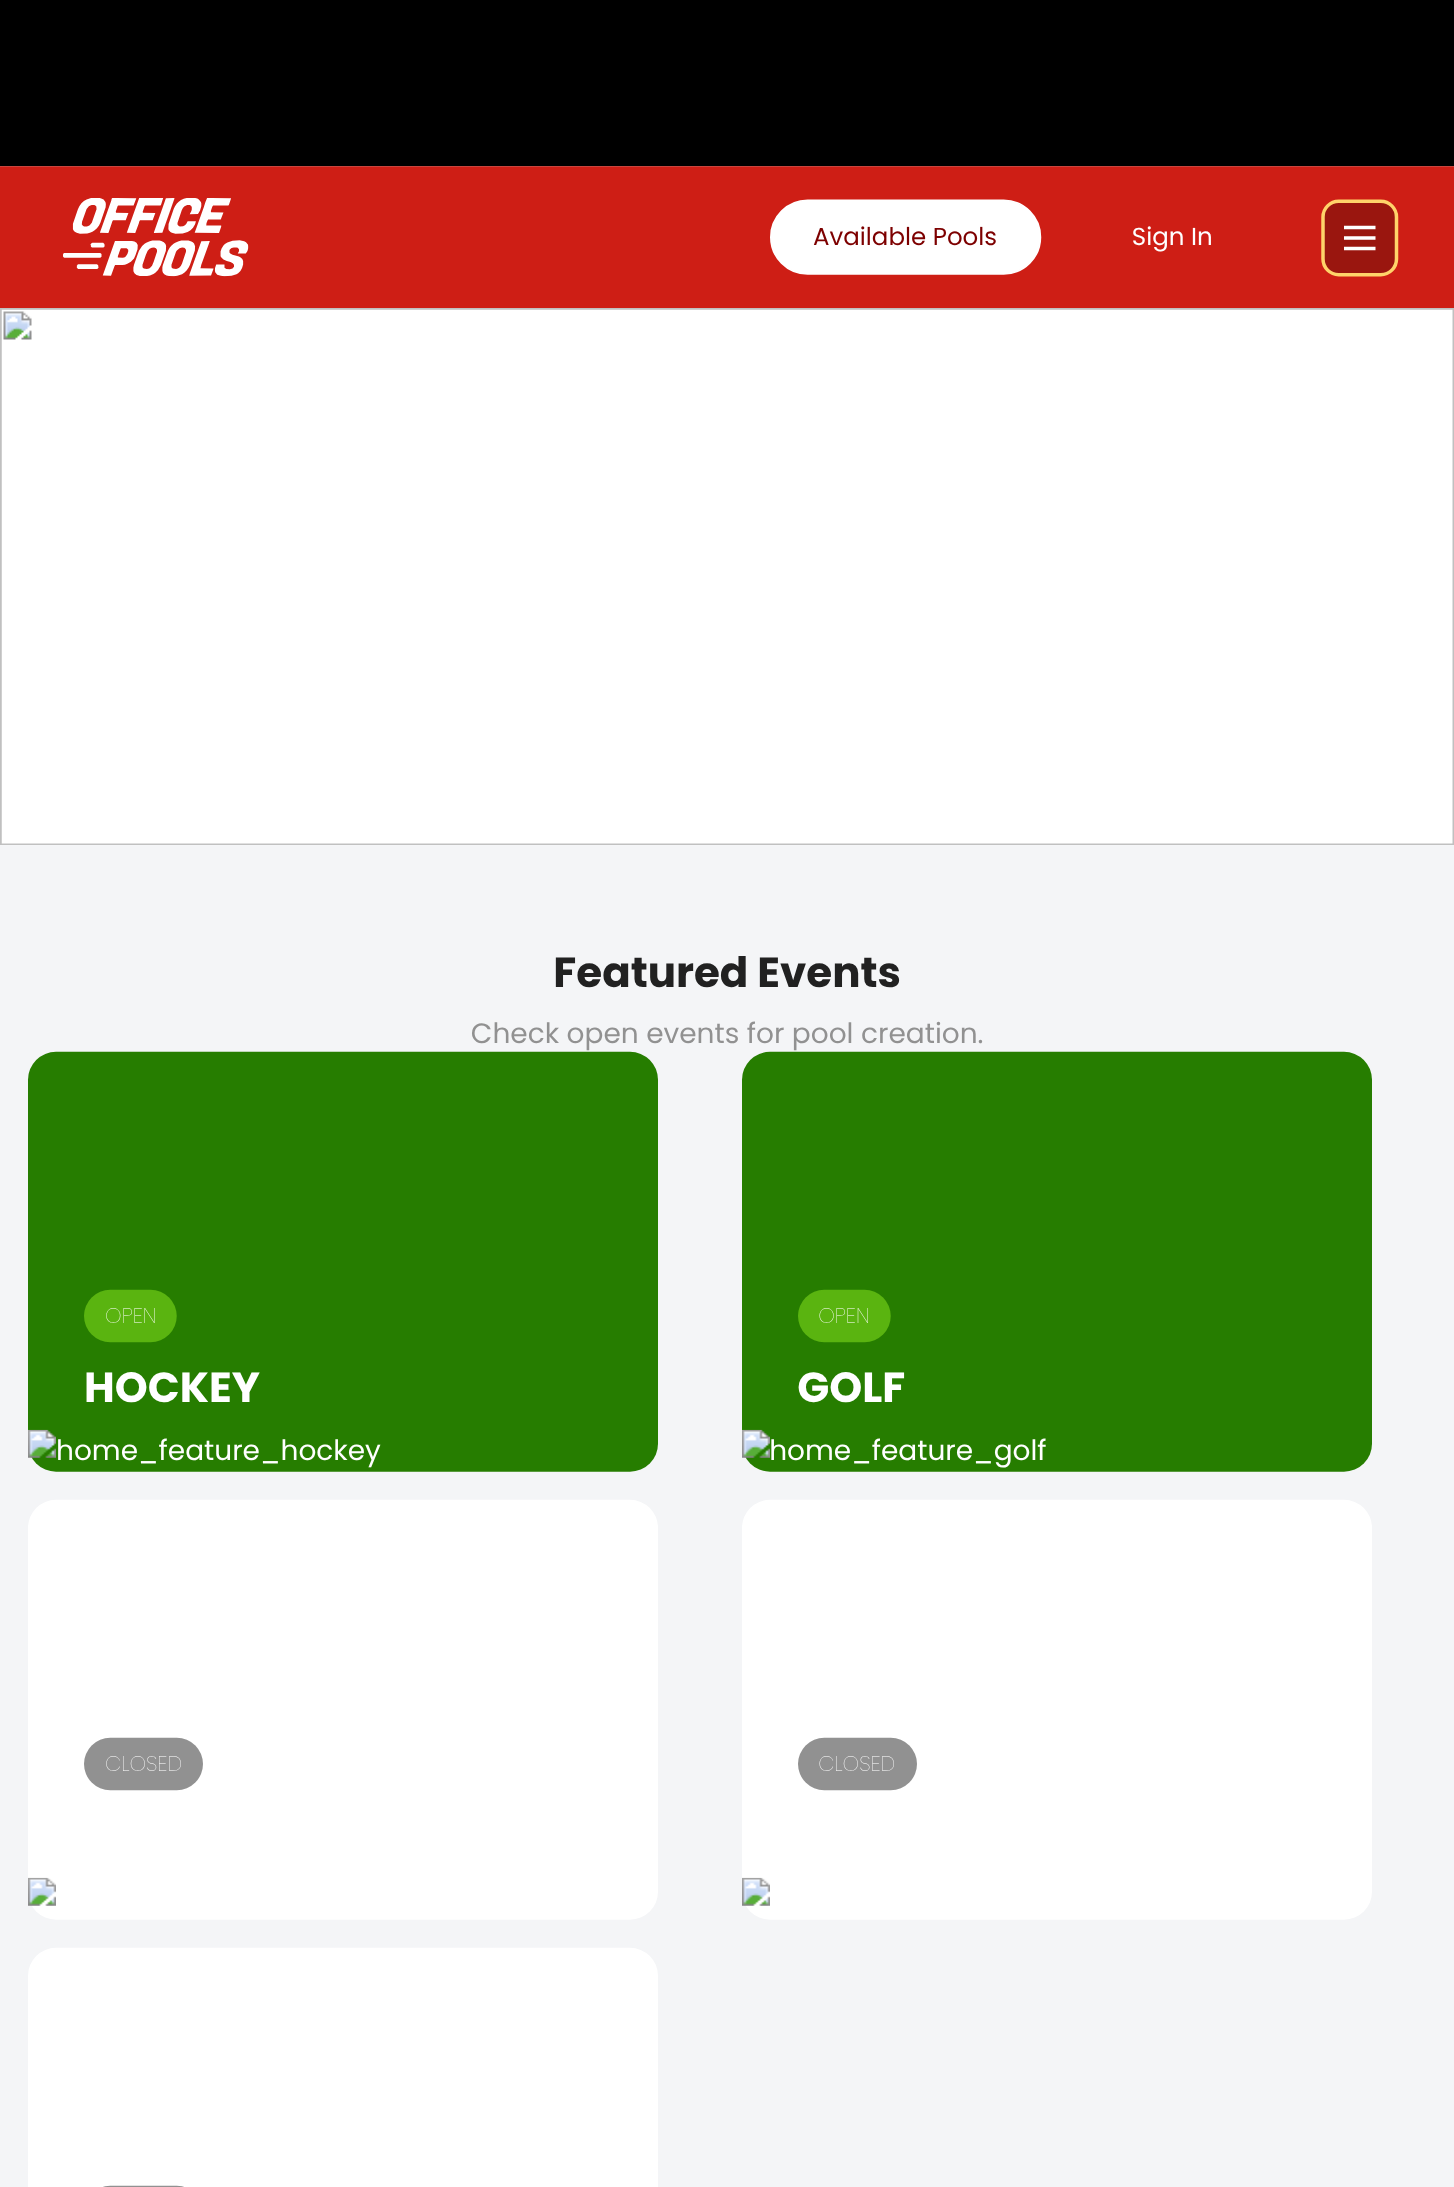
#include <cairo.h>
#include <math.h>
#include <stddef.h>


static void rgb(cairo_t *cr, int r, int g, int b)
{
	cairo_set_source_rgb(cr, r / 255.0, g / 255.0, b / 255.0);
}

static void image(cairo_t *cr, const char *path, double x, double y, double w, double h)
{
	cairo_surface_t *image = cairo_image_surface_create_from_png(path);
	cairo_save(cr);
	cairo_set_source_surface(cr, image, x, y);
	cairo_rectangle(cr, x, y, w, h);
	cairo_fill(cr);
	cairo_restore(cr);
	cairo_surface_destroy(image);
}

static void draw(cairo_t *cr) {
	rgb(cr, 255, 255, 255);
	cairo_paint(cr);
	image(cr, "image0.png", 0, 0, 1454, 2187);
}

int main(void) {
	cairo_surface_t *surface = cairo_image_surface_create(CAIRO_FORMAT_RGB24, 1454, 2187);
	cairo_t *cr = cairo_create(surface);
	cairo_font_options_t *options = cairo_font_options_create();
	cairo_font_options_set_hint_metrics(options, CAIRO_HINT_METRICS_OFF);
	cairo_font_options_set_hint_style(options, CAIRO_HINT_STYLE_NONE);
	cairo_set_font_options(cr, options);
	cairo_set_miter_limit(cr, 4);
	draw(cr);
	cairo_surface_write_to_png(surface, "render.png");
	cairo_font_options_destroy(options);
	cairo_destroy(cr);
	cairo_surface_destroy(surface);
	return 0;
}
